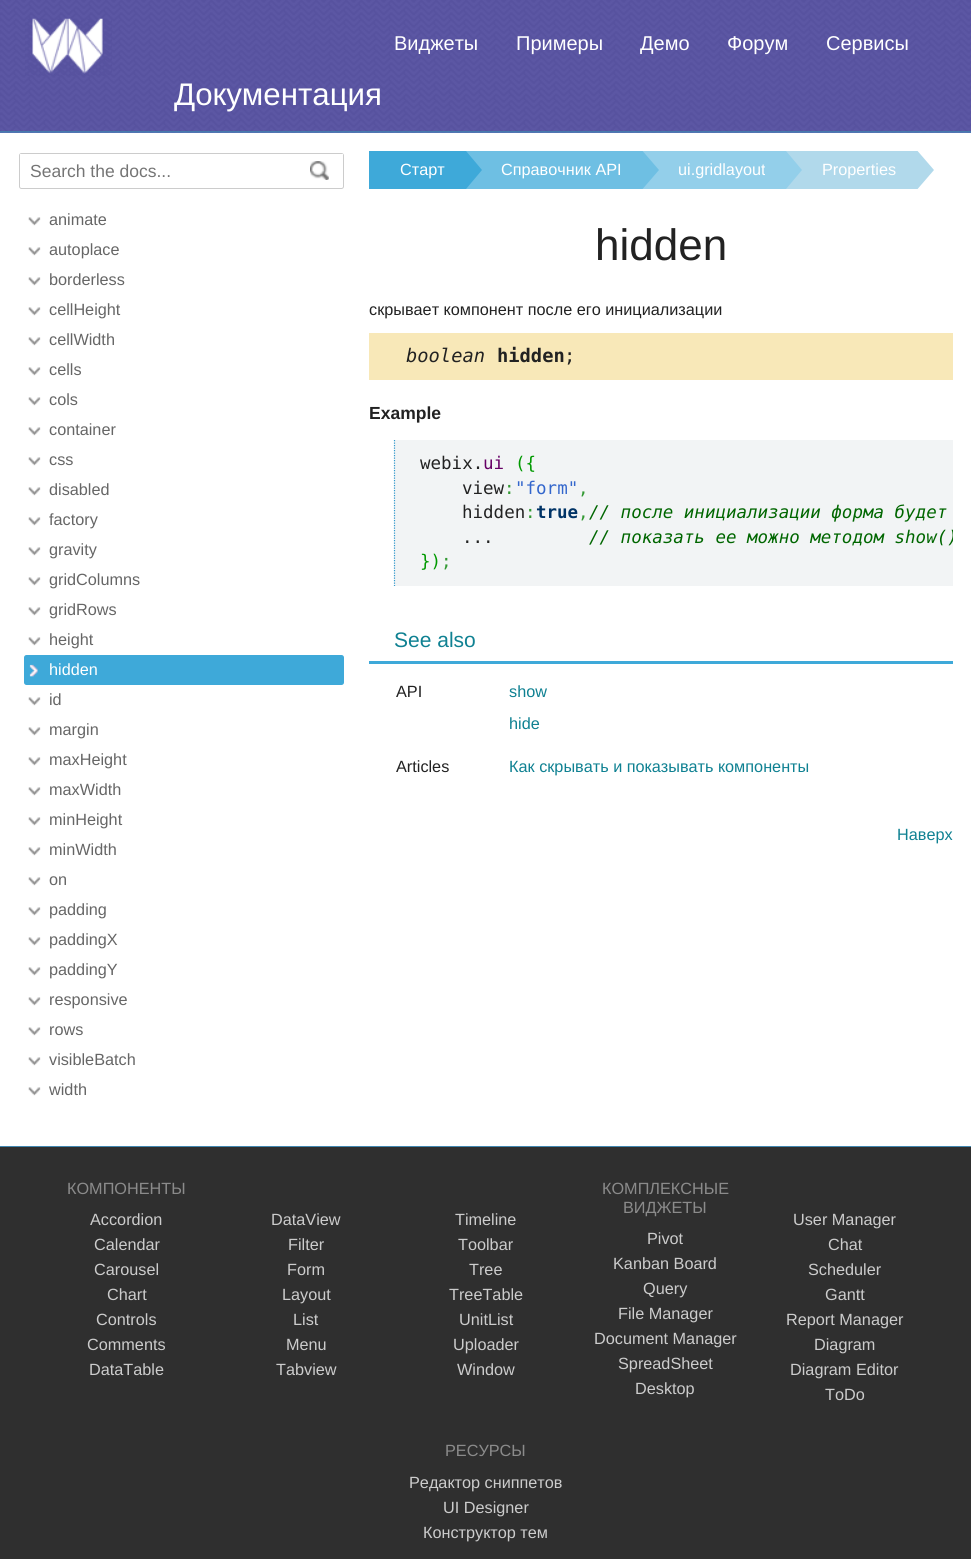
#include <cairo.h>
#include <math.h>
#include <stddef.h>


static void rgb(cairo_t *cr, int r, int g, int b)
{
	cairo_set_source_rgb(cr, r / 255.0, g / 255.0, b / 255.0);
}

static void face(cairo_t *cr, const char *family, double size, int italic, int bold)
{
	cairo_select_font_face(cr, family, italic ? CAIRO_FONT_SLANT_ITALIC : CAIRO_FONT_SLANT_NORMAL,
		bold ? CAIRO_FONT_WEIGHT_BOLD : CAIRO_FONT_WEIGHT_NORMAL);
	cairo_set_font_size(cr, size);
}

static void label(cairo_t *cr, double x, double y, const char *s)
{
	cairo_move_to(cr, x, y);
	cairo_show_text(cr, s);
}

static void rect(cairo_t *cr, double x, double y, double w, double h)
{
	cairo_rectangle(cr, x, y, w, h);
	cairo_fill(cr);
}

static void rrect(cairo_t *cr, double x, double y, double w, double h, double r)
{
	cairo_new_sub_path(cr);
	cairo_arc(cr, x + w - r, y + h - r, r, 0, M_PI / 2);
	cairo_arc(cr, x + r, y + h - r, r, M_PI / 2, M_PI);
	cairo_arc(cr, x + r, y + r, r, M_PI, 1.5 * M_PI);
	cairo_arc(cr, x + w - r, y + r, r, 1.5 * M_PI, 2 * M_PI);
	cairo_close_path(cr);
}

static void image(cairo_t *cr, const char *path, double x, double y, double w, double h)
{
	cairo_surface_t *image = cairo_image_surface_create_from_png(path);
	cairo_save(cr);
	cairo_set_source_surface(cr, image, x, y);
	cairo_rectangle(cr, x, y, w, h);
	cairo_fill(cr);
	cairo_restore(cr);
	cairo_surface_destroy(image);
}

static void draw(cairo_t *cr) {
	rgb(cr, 74, 150, 196);
	cairo_paint(cr);
	image(cr, "image0.png", 0, 132, 971, 1);
	rgb(cr, 66, 135, 176);
	rect(cr, 0, 131, 971, 1);
	image(cr, "image1.png", 0, 0, 971, 132);
	image(cr, "image2.png", 25, 18, 87, 58);
	face(cr, "Liberation Sans", 20, 0, 0);
	rgb(cr, 255, 255, 255);
	label(cr, 394, 50, "Виджеты");
	label(cr, 516, 50, "Примеры");
	label(cr, 640, 50, "Демо");
	label(cr, 727, 50, "Форум");
	label(cr, 826, 50, "Сервисы");
	face(cr, "Liberation Sans", 31.25, 0, 0);
	label(cr, 174, 105, "Документация");
	rect(cr, 0, 133, 971, 1013);
	rrect(cr, 19.5, 153.5, 324, 35, 2);
	rgb(cr, 204, 204, 204);
	cairo_set_line_width(cr, 1);
	cairo_stroke(cr);
	rgb(cr, 255, 255, 255);
	rect(cr, 20, 154, 323, 1);
	face(cr, "Liberation Sans", 17.5, 0, 0);
	rgb(cr, 117, 117, 117);
	label(cr, 30, 177, "Search the docs...");
	image(cr, "image3.png", 310, 161, 19, 19);
	image(cr, "image4.png", 28, 217, 13, 9);
	face(cr, "Liberation Sans", 16.25, 0, 0);
	rgb(cr, 102, 102, 102);
	label(cr, 49, 225, "animate");
	image(cr, "image4.png", 28, 247, 13, 9);
	label(cr, 49, 255, "autoplace");
	image(cr, "image4.png", 28, 277, 13, 9);
	label(cr, 49, 285, "borderless");
	image(cr, "image4.png", 28, 307, 13, 9);
	label(cr, 49, 315, "cellHeight");
	image(cr, "image4.png", 28, 337, 13, 9);
	label(cr, 49, 345, "cellWidth");
	image(cr, "image4.png", 28, 367, 13, 9);
	label(cr, 49, 375, "cells");
	image(cr, "image4.png", 28, 397, 13, 9);
	label(cr, 49, 405, "cols");
	image(cr, "image4.png", 28, 427, 13, 9);
	label(cr, 49, 435, "container");
	image(cr, "image4.png", 28, 457, 13, 9);
	label(cr, 49, 465, "css");
	image(cr, "image4.png", 28, 487, 13, 9);
	label(cr, 49, 495, "disabled");
	image(cr, "image4.png", 28, 517, 13, 9);
	label(cr, 49, 525, "factory");
	image(cr, "image4.png", 28, 547, 13, 9);
	label(cr, 49, 555, "gravity");
	image(cr, "image4.png", 28, 577, 13, 9);
	label(cr, 49, 585, "gridColumns");
	image(cr, "image4.png", 28, 607, 13, 9);
	label(cr, 49, 615, "gridRows");
	image(cr, "image4.png", 28, 637, 13, 9);
	label(cr, 49, 645, "height");
	rgb(cr, 62, 169, 217);
	rrect(cr, 24, 655, 320, 30, 2.5);
	cairo_fill(cr);
	image(cr, "image5.png", 29, 664, 9, 13);
	rgb(cr, 255, 255, 255);
	label(cr, 49, 675, "hidden");
	image(cr, "image4.png", 28, 697, 13, 9);
	rgb(cr, 102, 102, 102);
	label(cr, 49, 705, "id");
	image(cr, "image4.png", 28, 727, 13, 9);
	label(cr, 49, 735, "margin");
	image(cr, "image4.png", 28, 757, 13, 9);
	label(cr, 49, 765, "maxHeight");
	image(cr, "image4.png", 28, 787, 13, 9);
	label(cr, 49, 795, "maxWidth");
	image(cr, "image4.png", 28, 817, 13, 9);
	label(cr, 49, 825, "minHeight");
	image(cr, "image4.png", 28, 847, 13, 9);
	label(cr, 49, 855, "minWidth");
	image(cr, "image4.png", 28, 877, 13, 9);
	label(cr, 49, 885, "on");
	image(cr, "image4.png", 28, 907, 13, 9);
	label(cr, 49, 915, "padding");
	image(cr, "image4.png", 28, 937, 13, 9);
	label(cr, 49, 945, "paddingX");
	image(cr, "image4.png", 28, 967, 13, 9);
	label(cr, 49, 975, "paddingY");
	image(cr, "image4.png", 28, 997, 13, 9);
	label(cr, 49, 1005, "responsive");
	image(cr, "image6.png", 28, 1027, 13, 9);
	label(cr, 49, 1035, "rows");
	image(cr, "image4.png", 28, 1057, 13, 9);
	label(cr, 49, 1065, "visibleBatch");
	image(cr, "image4.png", 28, 1087, 13, 9);
	label(cr, 49, 1095, "width");
	rgb(cr, 62, 169, 217);
	rect(cr, 369, 151, 76, 38);
	rgb(cr, 255, 255, 255);
	label(cr, 400, 175, "Старт");
	rgb(cr, 110, 191, 227);
	rect(cr, 466, 151, 155, 38);
	cairo_save(cr);
	cairo_rectangle(cr, 369, 151, 584, 38);
	cairo_clip(cr);
	rgb(cr, 62, 169, 217);
	cairo_new_path(cr);
	cairo_move_to(cr, 445, 214);
	cairo_line_to(cr, 445, 126);
	cairo_line_to(cr, 482, 170);
	cairo_close_path(cr);
	cairo_fill(cr);
	cairo_restore(cr);
	rgb(cr, 255, 255, 255);
	label(cr, 501, 175, "Справочник API");
	rgb(cr, 147, 207, 234);
	rect(cr, 642, 151, 123, 38);
	cairo_save(cr);
	cairo_rectangle(cr, 369, 151, 584, 38);
	cairo_clip(cr);
	rgb(cr, 110, 191, 227);
	cairo_new_path(cr);
	cairo_move_to(cr, 621, 214);
	cairo_line_to(cr, 621, 126);
	cairo_line_to(cr, 659, 170);
	cairo_close_path(cr);
	cairo_fill(cr);
	cairo_restore(cr);
	rgb(cr, 255, 255, 255);
	label(cr, 678, 175, "ui.gridlayout");
	rgb(cr, 177, 217, 235);
	rect(cr, 786, 151, 110, 38);
	cairo_save(cr);
	cairo_rectangle(cr, 369, 151, 584, 38);
	cairo_clip(cr);
	rgb(cr, 147, 207, 234);
	cairo_new_path(cr);
	cairo_move_to(cr, 765, 214);
	cairo_line_to(cr, 765, 126);
	cairo_line_to(cr, 802, 170);
	cairo_close_path(cr);
	cairo_fill(cr);
	cairo_restore(cr);
	rgb(cr, 255, 255, 255);
	label(cr, 822, 175, "Properties");
	cairo_save(cr);
	cairo_rectangle(cr, 369, 151, 584, 38);
	cairo_clip(cr);
	rgb(cr, 177, 217, 235);
	cairo_new_path(cr);
	cairo_move_to(cr, 896, 214);
	cairo_line_to(cr, 896, 126);
	cairo_line_to(cr, 934, 170);
	cairo_close_path(cr);
	cairo_fill(cr);
	cairo_restore(cr);
	face(cr, "Liberation Sans", 44, 0, 0);
	rgb(cr, 34, 34, 34);
	label(cr, 595, 260, "hidden");
	face(cr, "Liberation Sans", 16.25, 0, 0);
	label(cr, 369, 315, "скрывает компонент после его инициализации");
	rgb(cr, 248, 232, 184);
	rect(cr, 369, 333, 584, 47);
	face(cr, "DejaVu Sans Mono", 18.75, 1, 0);
	rgb(cr, 34, 34, 34);
	label(cr, 406, 362, "boolean");
	face(cr, "DejaVu Sans Mono", 18.75, 0, 1);
	label(cr, 497, 362, "hidden");
	face(cr, "DejaVu Sans Mono", 18.75, 0, 0);
	label(cr, 564, 362, ";");
	face(cr, "Liberation Sans", 17.5, 0, 1);
	label(cr, 369, 419, "Example");
	rgb(cr, 242, 244, 245);
	rect(cr, 394, 440, 559, 146);
	cairo_new_path(cr);
	cairo_move_to(cr, 394.5, 440);
	cairo_line_to(cr, 394.5, 586);
	rgb(cr, 51, 153, 204);
	cairo_set_line_width(cr, 1.2);
	cairo_set_dash(cr, (double[]){1.25, 1.25}, 2, 0);
	cairo_stroke(cr);
	face(cr, "DejaVu Sans Mono", 17.5, 0, 0);
	rgb(cr, 34, 34, 34);
	label(cr, 420, 469, "webix.");
	rgb(cr, 102, 0, 102);
	label(cr, 483, 469, "ui");
	rgb(cr, 0, 153, 0);
	label(cr, 515, 469, "({");
	rgb(cr, 34, 34, 34);
	label(cr, 462, 494, "view");
	rgb(cr, 51, 153, 51);
	label(cr, 504, 494, ":");
	rgb(cr, 51, 102, 204);
	label(cr, 515, 494, "\"form\"");
	rgb(cr, 51, 153, 51);
	label(cr, 578, 494, ",");
	rgb(cr, 34, 34, 34);
	label(cr, 462, 518, "hidden");
	rgb(cr, 51, 153, 51);
	label(cr, 525, 518, ":");
	face(cr, "DejaVu Sans Mono", 17.5, 0, 1);
	rgb(cr, 0, 51, 102);
	label(cr, 536, 518, "true");
	face(cr, "DejaVu Sans Mono", 17.5, 0, 0);
	rgb(cr, 51, 153, 51);
	label(cr, 578, 518, ",");
	face(cr, "DejaVu Sans Mono", 17.5, 1, 0);
	rgb(cr, 0, 102, 0);
	label(cr, 589, 518, "// после инициализации форма будет");
	face(cr, "DejaVu Sans Mono", 17.5, 0, 0);
	rgb(cr, 34, 34, 34);
	label(cr, 462, 543, "...");
	cairo_save(cr);
	cairo_rectangle(cr, 369, 133, 584, 988);
	cairo_clip(cr);
	face(cr, "DejaVu Sans Mono", 17.5, 1, 0);
	rgb(cr, 0, 102, 0);
	label(cr, 589, 543, "// показать ее можно методом show()");
	cairo_restore(cr);
	rgb(cr, 0, 153, 0);
	label(cr, 420, 567, "})");
	rgb(cr, 51, 153, 51);
	label(cr, 441, 567, ";");
	rgb(cr, 62, 169, 217);
	rect(cr, 369, 661, 584, 3);
	face(cr, "Liberation Sans", 21, 0, 0);
	rgb(cr, 15, 129, 146);
	label(cr, 394, 647, "See also");
	face(cr, "Liberation Sans", 16.25, 0, 0);
	rgb(cr, 34, 34, 34);
	label(cr, 396, 697, "API");
	rgb(cr, 15, 129, 146);
	label(cr, 509, 697, "show");
	label(cr, 509, 729, "hide");
	rgb(cr, 34, 34, 34);
	label(cr, 396, 772, "Articles");
	rgb(cr, 15, 129, 146);
	label(cr, 509, 772, "Как скрывать и показывать компоненты");
	label(cr, 897, 840, "Наверх");
	rgb(cr, 47, 47, 47);
	rect(cr, 0, 1147, 971, 412);
	rgb(cr, 66, 135, 176);
	rect(cr, 0, 1146, 971, 1);
	rgb(cr, 139, 139, 139);
	label(cr, 67, 1194, "КОМПОНЕНТЫ");
	rgb(cr, 204, 204, 204);
	label(cr, 90, 1225, "Accordion");
	label(cr, 94, 1250, "Calendar");
	label(cr, 94, 1275, "Carousel");
	label(cr, 107, 1300, "Chart");
	label(cr, 96, 1325, "Controls");
	label(cr, 87, 1350, "Comments");
	label(cr, 89, 1375, "DataTable");
	label(cr, 271, 1225, "DataView");
	label(cr, 288, 1250, "Filter");
	label(cr, 287, 1275, "Form");
	label(cr, 282, 1300, "Layout");
	label(cr, 293, 1325, "List");
	label(cr, 286, 1350, "Menu");
	label(cr, 276, 1375, "Tabview");
	label(cr, 455, 1225, "Timeline");
	label(cr, 458, 1250, "Toolbar");
	label(cr, 469, 1275, "Tree");
	label(cr, 449, 1300, "TreeTable");
	label(cr, 459, 1325, "UnitList");
	label(cr, 453, 1350, "Uploader");
	label(cr, 457, 1375, "Window");
	rgb(cr, 139, 139, 139);
	label(cr, 602, 1194, "КОМПЛЕКСНЫЕ");
	label(cr, 623, 1213, "ВИДЖЕТЫ");
	rgb(cr, 204, 204, 204);
	label(cr, 647, 1244, "Pivot");
	label(cr, 613, 1269, "Kanban Board");
	label(cr, 643, 1294, "Query");
	label(cr, 618, 1319, "File Manager");
	label(cr, 594, 1344, "Document Manager");
	label(cr, 618, 1369, "SpreadSheet");
	label(cr, 635, 1394, "Desktop");
	label(cr, 793, 1225, "User Manager");
	label(cr, 828, 1250, "Chat");
	label(cr, 808, 1275, "Scheduler");
	label(cr, 825, 1300, "Gantt");
	label(cr, 786, 1325, "Report Manager");
	label(cr, 814, 1350, "Diagram");
	label(cr, 790, 1375, "Diagram Editor");
	label(cr, 825, 1400, "ToDo");
	rgb(cr, 139, 139, 139);
	label(cr, 445, 1456, "РЕСУРСЫ");
	rgb(cr, 204, 204, 204);
	label(cr, 409, 1488, "Редактор сниппетов");
	label(cr, 443, 1513, "UI Designer");
	label(cr, 423, 1538, "Конструктор тем");
}

int main(void) {
	cairo_surface_t *surface = cairo_image_surface_create(CAIRO_FORMAT_RGB24, 971, 1559);
	cairo_t *cr = cairo_create(surface);
	cairo_font_options_t *options = cairo_font_options_create();
	cairo_font_options_set_hint_metrics(options, CAIRO_HINT_METRICS_OFF);
	cairo_font_options_set_hint_style(options, CAIRO_HINT_STYLE_NONE);
	cairo_set_font_options(cr, options);
	cairo_set_miter_limit(cr, 4);
	draw(cr);
	cairo_surface_write_to_png(surface, "render.png");
	cairo_font_options_destroy(options);
	cairo_destroy(cr);
	cairo_surface_destroy(surface);
	return 0;
}
